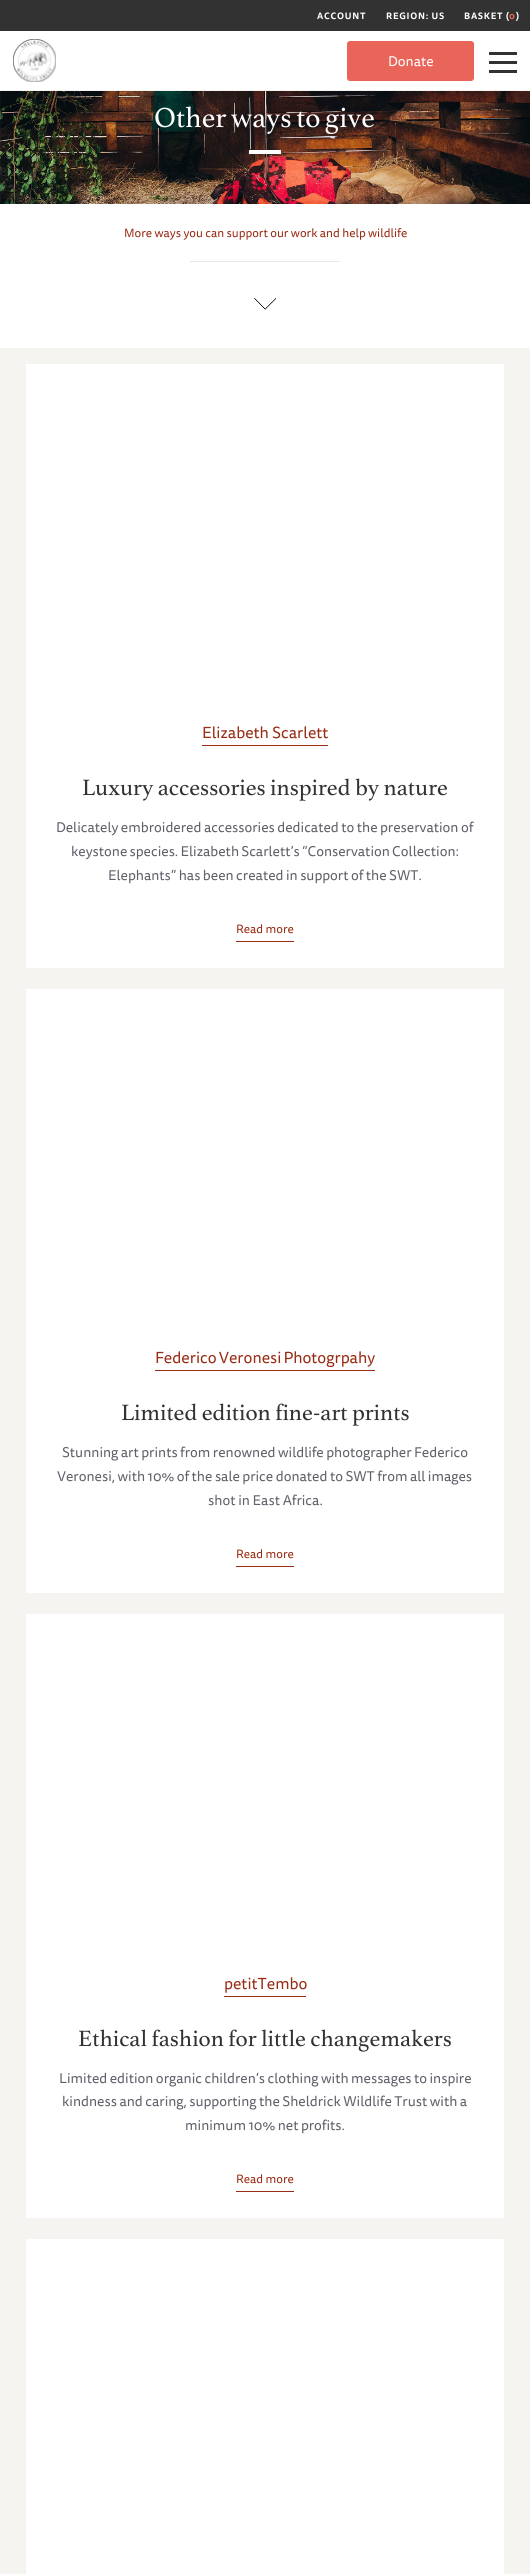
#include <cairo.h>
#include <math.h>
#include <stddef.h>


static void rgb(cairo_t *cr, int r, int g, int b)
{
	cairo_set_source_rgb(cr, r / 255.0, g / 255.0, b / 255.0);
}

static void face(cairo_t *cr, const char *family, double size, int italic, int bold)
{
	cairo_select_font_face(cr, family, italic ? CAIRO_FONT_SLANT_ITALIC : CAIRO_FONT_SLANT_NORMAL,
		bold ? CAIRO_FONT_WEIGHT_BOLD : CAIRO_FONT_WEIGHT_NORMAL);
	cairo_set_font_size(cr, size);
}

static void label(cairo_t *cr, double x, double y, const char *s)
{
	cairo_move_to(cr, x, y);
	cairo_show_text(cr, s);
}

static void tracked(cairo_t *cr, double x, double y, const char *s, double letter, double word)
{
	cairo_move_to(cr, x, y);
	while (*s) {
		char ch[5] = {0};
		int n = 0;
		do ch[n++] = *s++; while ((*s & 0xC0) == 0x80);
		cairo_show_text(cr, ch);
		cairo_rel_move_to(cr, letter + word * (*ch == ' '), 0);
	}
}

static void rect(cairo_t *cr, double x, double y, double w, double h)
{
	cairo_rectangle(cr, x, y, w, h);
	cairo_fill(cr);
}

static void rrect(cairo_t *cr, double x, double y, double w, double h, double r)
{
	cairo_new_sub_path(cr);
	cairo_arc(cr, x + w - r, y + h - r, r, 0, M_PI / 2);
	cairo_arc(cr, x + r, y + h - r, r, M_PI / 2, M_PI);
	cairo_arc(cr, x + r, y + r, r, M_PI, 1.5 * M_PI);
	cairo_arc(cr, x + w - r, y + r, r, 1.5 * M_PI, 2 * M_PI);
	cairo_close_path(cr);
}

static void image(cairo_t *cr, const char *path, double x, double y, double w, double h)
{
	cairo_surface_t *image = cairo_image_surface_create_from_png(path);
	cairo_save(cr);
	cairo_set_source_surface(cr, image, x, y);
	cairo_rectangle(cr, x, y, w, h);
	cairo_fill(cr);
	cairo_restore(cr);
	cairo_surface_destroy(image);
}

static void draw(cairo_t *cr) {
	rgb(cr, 255, 255, 255);
	cairo_paint(cr);
	rgb(cr, 50, 50, 50);
	rect(cr, 0, 0, 530, 31);
	face(cr, "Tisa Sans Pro", 9, 0, 1);
	rgb(cr, 255, 255, 255);
	tracked(cr, 317, 19, "ACCOUNT", 0.75, 0);
	tracked(cr, 386, 19, "REGION: US", 0.75, 0);
	tracked(cr, 464, 19, "BASKET (", 0.75, 0);
	rgb(cr, 233, 101, 89);
	tracked(cr, 509, 19, "0", 0.75, 0);
	rgb(cr, 255, 255, 255);
	tracked(cr, 516, 19, ")", 0.75, 0);
	rgb(cr, 245, 244, 241);
	rect(cr, 0, 90, 530, 1);
	image(cr, "image0.png", 13, 39, 43, 43);
	rgb(cr, 233, 101, 89);
	rrect(cr, 347.5, 41.5, 126, 39, 2.5);
	cairo_fill_preserve(cr);
	cairo_set_line_width(cr, 1);
	cairo_stroke(cr);
	face(cr, "Tisa Sans Pro", 14, 0, 0);
	rgb(cr, 255, 255, 255);
	label(cr, 388, 66, "Donate");
	rgb(cr, 50, 50, 50);
	rect(cr, 489, 52, 28, 3);
	rect(cr, 489, 61, 28, 3);
	rect(cr, 489, 70, 28, 3);
	image(cr, "image1.png", 0, 91, 530, 113);
	face(cr, "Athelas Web", 30, 0, 0);
	rgb(cr, 255, 255, 255);
	tracked(cr, 154, 127, "Other ways to give", 0, -1.5);
	rect(cr, 249, 150, 32, 4);
	face(cr, "Tisa Sans Pro", 12, 0, 0);
	rgb(cr, 152, 44, 21);
	label(cr, 124, 237, "More ways you can support our work and help wildlife");
	rgb(cr, 234, 232, 226);
	rect(cr, 190, 261, 150, 1);
	image(cr, "image2.png", 254, 298, 22, 12);
	rgb(cr, 245, 244, 241);
	rect(cr, 0, 348, 530, 2226);
	rgb(cr, 255, 255, 255);
	rect(cr, 26, 364, 478, 604);
	rgb(cr, 152, 44, 21);
	rect(cr, 202, 745, 126, 1);
	face(cr, "Tisa Sans Pro", 16, 0, 0);
	label(cr, 202, 738, "Elizabeth Scarlett");
	face(cr, "Athelas Web", 24, 0, 0);
	rgb(cr, 50, 50, 50);
	tracked(cr, 82, 795, "Luxury accessories inspired by nature", 0, -0.5);
	face(cr, "Tisa Sans Pro", 14, 0, 0);
	rgb(cr, 96, 97, 106);
	tracked(cr, 56, 832, "Delicately embroidered accessories dedicated to the preservation of", 0, -0.25);
	tracked(cr, 71, 856, "keystone species. Elizabeth Scarlett’s “Conservation Collection:", 0, -0.5);
	tracked(cr, 108, 880, "Elephants” has been created in support of the SWT.", 0, -0.25);
	rgb(cr, 152, 44, 21);
	rect(cr, 236, 941, 58, 1);
	face(cr, "Tisa Sans Pro", 12, 0, 0);
	label(cr, 236, 933, "Read more");
	rgb(cr, 255, 255, 255);
	rect(cr, 26, 989, 478, 604);
	rgb(cr, 152, 44, 21);
	rect(cr, 155, 1370, 220, 1);
	face(cr, "Tisa Sans Pro", 16, 0, 0);
	tracked(cr, 155, 1363, "Federico Veronesi Photogrpahy", 0, -1);
	face(cr, "Athelas Web", 24, 0, 0);
	rgb(cr, 50, 50, 50);
	tracked(cr, 121, 1420, "Limited edition fine-art prints", 0, -0.5);
	face(cr, "Tisa Sans Pro", 14, 0, 0);
	rgb(cr, 96, 97, 106);
	tracked(cr, 62, 1457, "Stunning art prints from renowned wildlife photographer Federico", 0, -0.25);
	tracked(cr, 57, 1481, "Veronesi, with 10% of the sale price donated to SWT from all images", 0, -0.25);
	label(cr, 208, 1505, "shot in East Africa.");
	rgb(cr, 152, 44, 21);
	rect(cr, 236, 1566, 58, 1);
	face(cr, "Tisa Sans Pro", 12, 0, 0);
	label(cr, 236, 1558, "Read more");
	rgb(cr, 255, 255, 255);
	rect(cr, 26, 1614, 478, 604);
	rgb(cr, 152, 44, 21);
	rect(cr, 224, 1996, 82, 1);
	face(cr, "Tisa Sans Pro", 16, 0, 0);
	label(cr, 224, 1989, "petitTembo");
	face(cr, "Athelas Web", 24, 0, 0);
	rgb(cr, 50, 50, 50);
	tracked(cr, 78, 2046, "Ethical fashion for little changemakers", 0, -0.5);
	face(cr, "Tisa Sans Pro", 14, 0, 0);
	rgb(cr, 96, 97, 106);
	tracked(cr, 59, 2083, "Limited edition organic children’s clothing with messages to inspire", 0, -0.25);
	tracked(cr, 62, 2106, "kindness and caring, supporting the Sheldrick Wildlife Trust with a", 0, -0.25);
	tracked(cr, 185, 2130, "minimum 10% net profits.", 0, -0.25);
	rgb(cr, 152, 44, 21);
	rect(cr, 236, 2191, 58, 1);
	face(cr, "Tisa Sans Pro", 12, 0, 0);
	label(cr, 236, 2183, "Read more");
	rgb(cr, 255, 255, 255);
	rect(cr, 26, 2239, 478, 335);
}

int main(void) {
	cairo_surface_t *surface = cairo_image_surface_create(CAIRO_FORMAT_RGB24, 530, 2574);
	cairo_t *cr = cairo_create(surface);
	cairo_font_options_t *options = cairo_font_options_create();
	cairo_font_options_set_hint_metrics(options, CAIRO_HINT_METRICS_OFF);
	cairo_font_options_set_hint_style(options, CAIRO_HINT_STYLE_NONE);
	cairo_set_font_options(cr, options);
	cairo_set_miter_limit(cr, 4);
	draw(cr);
	cairo_surface_write_to_png(surface, "render.png");
	cairo_font_options_destroy(options);
	cairo_destroy(cr);
	cairo_surface_destroy(surface);
	return 0;
}
